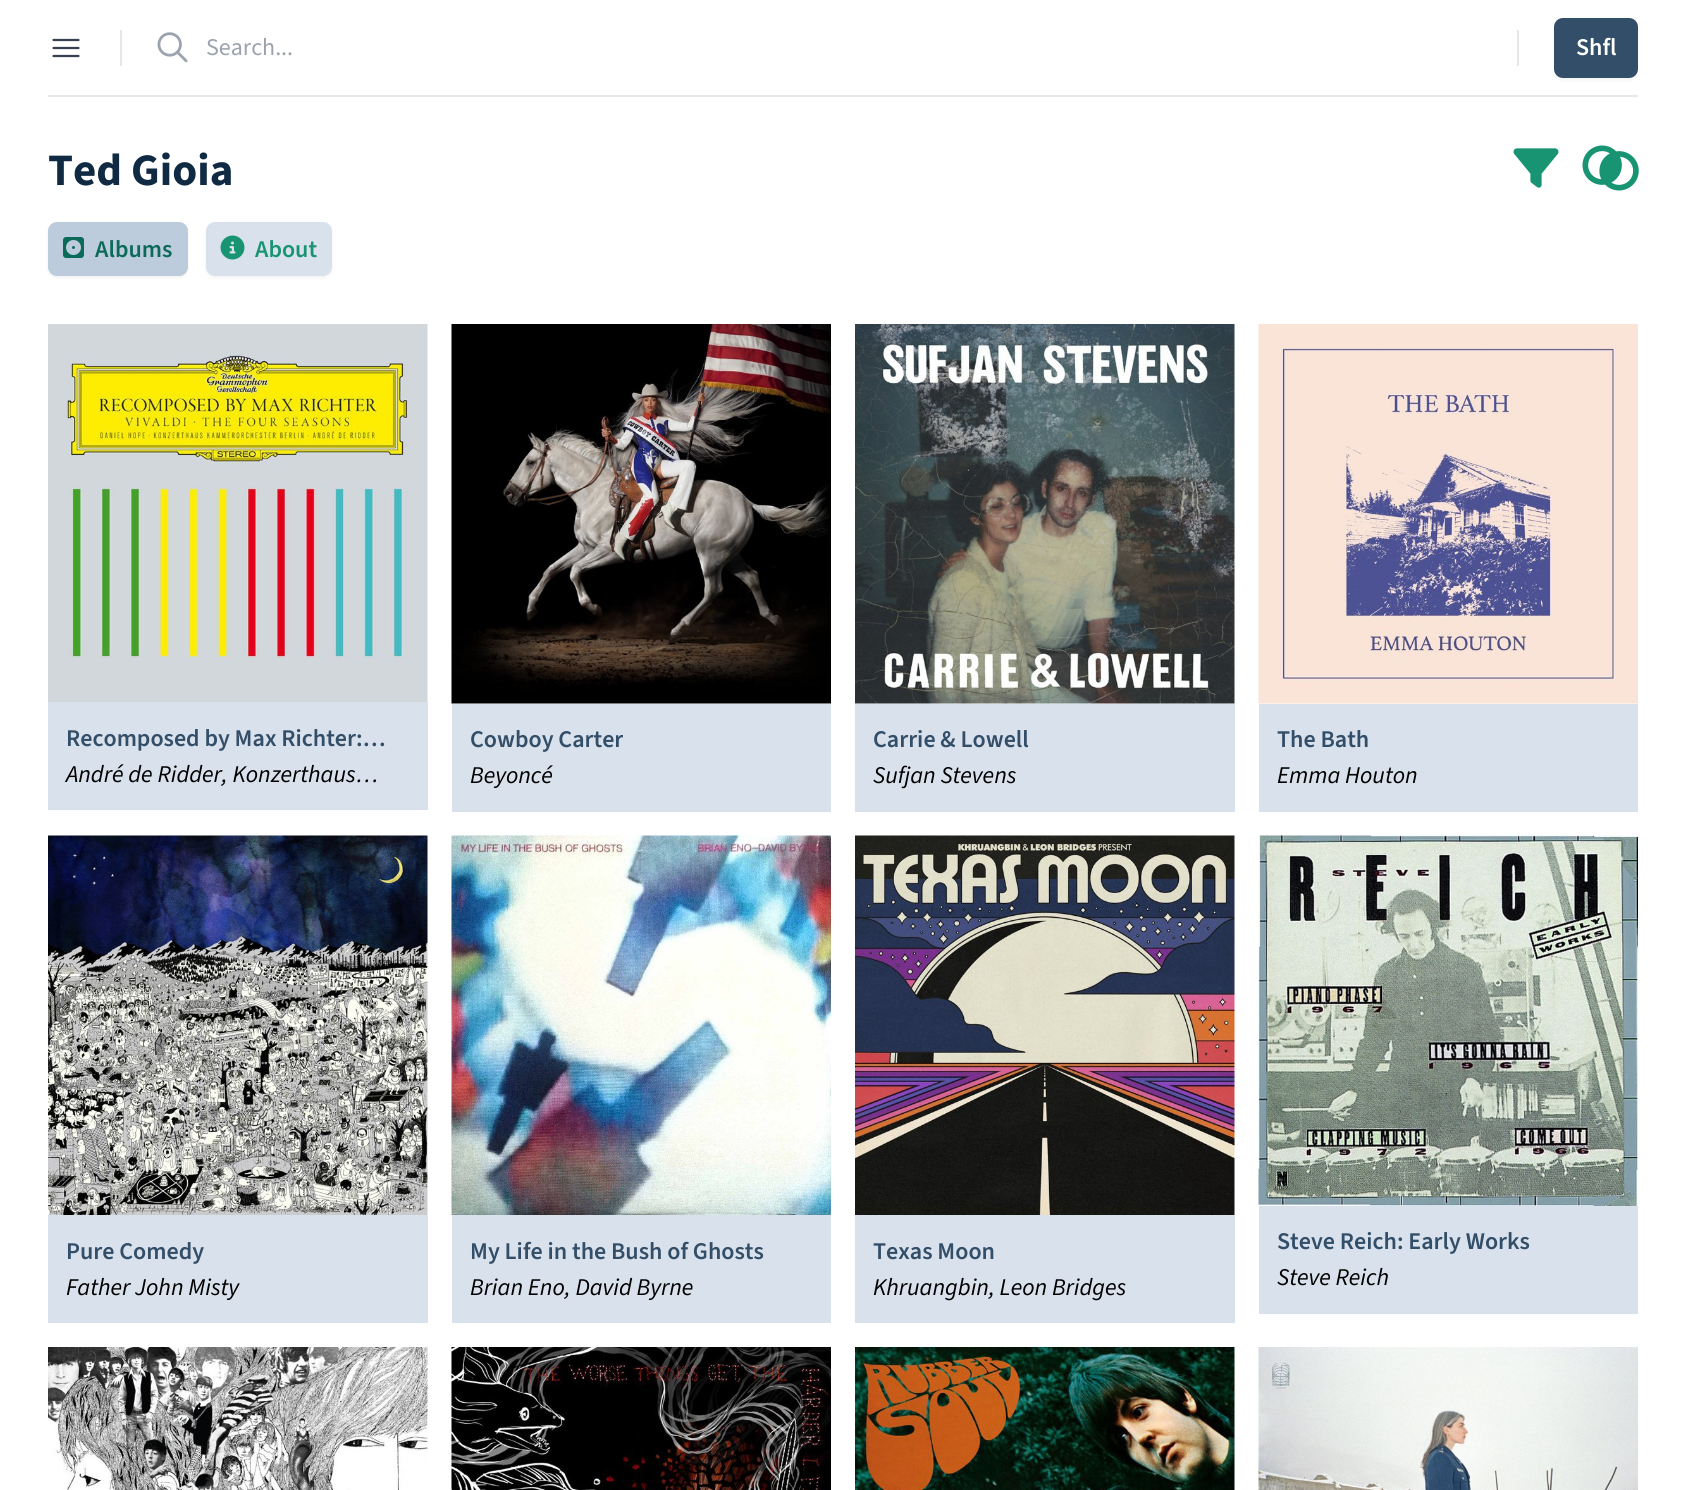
#include <cairo.h>
#include <math.h>
#include <stddef.h>


static void rgb(cairo_t *cr, int r, int g, int b)
{
	cairo_set_source_rgb(cr, r / 255.0, g / 255.0, b / 255.0);
}

static void face(cairo_t *cr, const char *family, double size, int italic, int bold)
{
	cairo_select_font_face(cr, family, italic ? CAIRO_FONT_SLANT_ITALIC : CAIRO_FONT_SLANT_NORMAL,
		bold ? CAIRO_FONT_WEIGHT_BOLD : CAIRO_FONT_WEIGHT_NORMAL);
	cairo_set_font_size(cr, size);
}

static void label(cairo_t *cr, double x, double y, const char *s)
{
	cairo_move_to(cr, x, y);
	cairo_show_text(cr, s);
}

static void rect(cairo_t *cr, double x, double y, double w, double h)
{
	cairo_rectangle(cr, x, y, w, h);
	cairo_fill(cr);
}

static void rrect(cairo_t *cr, double x, double y, double w, double h, double r)
{
	cairo_new_sub_path(cr);
	cairo_arc(cr, x + w - r, y + h - r, r, 0, M_PI / 2);
	cairo_arc(cr, x + r, y + h - r, r, M_PI / 2, M_PI);
	cairo_arc(cr, x + r, y + r, r, M_PI, 1.5 * M_PI);
	cairo_arc(cr, x + w - r, y + r, r, 1.5 * M_PI, 2 * M_PI);
	cairo_close_path(cr);
}

static void soft_shadow(cairo_t *cr, double x, double y, double w, double h, double r, double blur, double alpha)
{
	cairo_push_group_with_content(cr, CAIRO_CONTENT_ALPHA);
	cairo_set_operator(cr, CAIRO_OPERATOR_SOURCE);
	for (int i = 15; i >= -15 && fmin(w, h) + blur * i / 3 > 0; i -= 2) {
		double e = blur * i / 6;
		cairo_set_source_rgba(cr, 0, 0, 0, alpha * erfc((i - 1) / 8.5) / 2);
		rrect(cr, x - e, y - e, w + 2 * e, h + 2 * e, fmax(0, fmin(r + e + blur * .6, fmin(w, h) / 2 + e)));
		cairo_fill(cr);
	}
	cairo_pattern_t *soft = cairo_pop_group(cr);
	cairo_mask(cr, soft);
	cairo_pattern_destroy(soft);
}

static void image(cairo_t *cr, const char *path, double x, double y, double w, double h)
{
	cairo_surface_t *image = cairo_image_surface_create_from_png(path);
	cairo_save(cr);
	cairo_set_source_surface(cr, image, x, y);
	cairo_rectangle(cr, x, y, w, h);
	cairo_fill(cr);
	cairo_restore(cr);
	cairo_surface_destroy(image);
}

static void draw(cairo_t *cr) {
	rgb(cr, 255, 255, 255);
	cairo_paint(cr);
	rgb(cr, 229, 231, 235);
	rect(cr, 48, 95, 1590, 2);
	cairo_new_path(cr);
	cairo_move_to(cr, 53.5, 40);
	cairo_line_to(cr, 78.5, 40);
	cairo_move_to(cr, 53.5, 48);
	cairo_line_to(cr, 78.5, 48);
	cairo_move_to(cr, 53.5, 56);
	cairo_line_to(cr, 78.5, 56);
	rgb(cr, 55, 65, 81);
	cairo_set_line_width(cr, 2.2);
	cairo_set_line_cap(cr, CAIRO_LINE_CAP_ROUND);
	cairo_set_line_join(cr, CAIRO_LINE_JOIN_ROUND);
	cairo_stroke(cr);
	rgb(cr, 229, 231, 235);
	rect(cr, 120, 30, 2, 36);
	image(cr, "image0.png", 157, 32, 31, 31);
	face(cr, "Source Sans 3", 24, 0, 0);
	rgb(cr, 156, 163, 175);
	label(cr, 206, 55, "Search...");
	rgb(cr, 229, 231, 235);
	rect(cr, 1517, 30, 2, 36);
	rgb(cr, 0, 0, 0);
	soft_shadow(cr, 1554, 20, 84, 60, 9, 1.5, 0.05);
	rgb(cr, 51, 78, 104);
	rrect(cr, 1554, 18, 84, 60, 9);
	cairo_fill(cr);
	face(cr, "Source Sans 3 SemiBold", 24, 0, 0);
	rgb(cr, 255, 255, 255);
	label(cr, 1576, 55, "Shfl");
	face(cr, "Source Sans 3", 45, 0, 1);
	rgb(cr, 16, 42, 67);
	label(cr, 48, 185, "Ted Gioia");
	image(cr, "image1.png", 1513, 148, 46, 40);
	image(cr, "image2.png", 1582, 145, 57, 46);
	rgb(cr, 0, 0, 0);
	soft_shadow(cr, 48, 224, 140, 54, 9, 1.5, 0.05);
	rgb(cr, 188, 204, 220);
	rrect(cr, 48, 222, 140, 54, 9);
	cairo_fill(cr);
	image(cr, "image3.png", 63, 237, 21, 21);
	face(cr, "Source Sans 3 SemiBold", 24, 0, 0);
	rgb(cr, 12, 107, 88);
	label(cr, 95, 257, "Albums");
	rgb(cr, 0, 0, 0);
	soft_shadow(cr, 206, 224, 126, 54, 9, 1.5, 0.05);
	rgb(cr, 217, 226, 236);
	rrect(cr, 206, 222, 126, 54, 9);
	cairo_fill(cr);
	image(cr, "image4.png", 220, 235, 25, 25);
	rgb(cr, 25, 148, 115);
	label(cr, 255, 257, "About");
	image(cr, "image5.png", 48, 324, 380, 378);
	rgb(cr, 217, 226, 236);
	rect(cr, 48, 702, 380, 108);
	rgb(cr, 51, 78, 104);
	label(cr, 66, 746, "Recomposed by Max Richter:…");
	face(cr, "Source Sans 3", 24, 1, 0);
	rgb(cr, 0, 0, 0);
	label(cr, 66, 782, "André de Ridder, Konzerthaus…");
	image(cr, "image6.png", 451, 324, 380, 380);
	rgb(cr, 217, 226, 236);
	rect(cr, 452, 704, 379, 108);
	face(cr, "Source Sans 3 SemiBold", 24, 0, 0);
	rgb(cr, 51, 78, 104);
	label(cr, 470, 747, "Cowboy Carter");
	face(cr, "Source Sans 3", 24, 1, 0);
	rgb(cr, 0, 0, 0);
	label(cr, 470, 783, "Beyoncé");
	image(cr, "image7.png", 855, 324, 380, 380);
	rgb(cr, 217, 226, 236);
	rect(cr, 855, 704, 380, 108);
	face(cr, "Source Sans 3 SemiBold", 24, 0, 0);
	rgb(cr, 51, 78, 104);
	label(cr, 873, 747, "Carrie & Lowell");
	face(cr, "Source Sans 3", 24, 1, 0);
	rgb(cr, 0, 0, 0);
	label(cr, 873, 783, "Sufjan Stevens");
	image(cr, "image8.png", 1258, 324, 380, 380);
	rgb(cr, 217, 226, 236);
	rect(cr, 1259, 704, 379, 108);
	face(cr, "Source Sans 3 SemiBold", 24, 0, 0);
	rgb(cr, 51, 78, 104);
	label(cr, 1277, 747, "The Bath");
	face(cr, "Source Sans 3", 24, 1, 0);
	rgb(cr, 0, 0, 0);
	label(cr, 1277, 783, "Emma Houton");
	image(cr, "image9.png", 48, 835, 380, 380);
	rgb(cr, 217, 226, 236);
	rect(cr, 48, 1215, 380, 108);
	face(cr, "Source Sans 3 SemiBold", 24, 0, 0);
	rgb(cr, 51, 78, 104);
	label(cr, 66, 1259, "Pure Comedy");
	face(cr, "Source Sans 3", 24, 1, 0);
	rgb(cr, 0, 0, 0);
	label(cr, 66, 1295, "Father John Misty");
	image(cr, "image10.png", 451, 835, 380, 380);
	rgb(cr, 217, 226, 236);
	rect(cr, 452, 1215, 379, 108);
	face(cr, "Source Sans 3 SemiBold", 24, 0, 0);
	rgb(cr, 51, 78, 104);
	label(cr, 470, 1259, "My Life in the Bush of Ghosts");
	face(cr, "Source Sans 3", 24, 1, 0);
	rgb(cr, 0, 0, 0);
	label(cr, 470, 1295, "Brian Eno, David Byrne");
	image(cr, "image11.png", 855, 835, 380, 380);
	rgb(cr, 217, 226, 236);
	rect(cr, 855, 1215, 380, 108);
	face(cr, "Source Sans 3 SemiBold", 24, 0, 0);
	rgb(cr, 51, 78, 104);
	label(cr, 873, 1259, "Texas Moon");
	face(cr, "Source Sans 3", 24, 1, 0);
	rgb(cr, 0, 0, 0);
	label(cr, 873, 1295, "Khruangbin, Leon Bridges");
	image(cr, "image12.png", 1258, 835, 380, 371);
	rgb(cr, 217, 226, 236);
	rect(cr, 1259, 1206, 379, 108);
	face(cr, "Source Sans 3 SemiBold", 24, 0, 0);
	rgb(cr, 51, 78, 104);
	label(cr, 1277, 1249, "Steve Reich: Early Works");
	face(cr, "Source Sans 3", 24, 1, 0);
	rgb(cr, 0, 0, 0);
	label(cr, 1277, 1285, "Steve Reich");
	image(cr, "image13.png", 48, 1347, 380, 143);
	image(cr, "image14.png", 451, 1347, 380, 143);
	image(cr, "image15.png", 855, 1347, 380, 143);
	image(cr, "image16.png", 1258, 1347, 380, 143);
}

int main(void) {
	cairo_surface_t *surface = cairo_image_surface_create(CAIRO_FORMAT_RGB24, 1686, 1490);
	cairo_t *cr = cairo_create(surface);
	cairo_font_options_t *options = cairo_font_options_create();
	cairo_font_options_set_hint_metrics(options, CAIRO_HINT_METRICS_OFF);
	cairo_font_options_set_hint_style(options, CAIRO_HINT_STYLE_NONE);
	cairo_set_font_options(cr, options);
	cairo_set_miter_limit(cr, 4);
	draw(cr);
	cairo_surface_write_to_png(surface, "render.png");
	cairo_font_options_destroy(options);
	cairo_destroy(cr);
	cairo_surface_destroy(surface);
	return 0;
}
